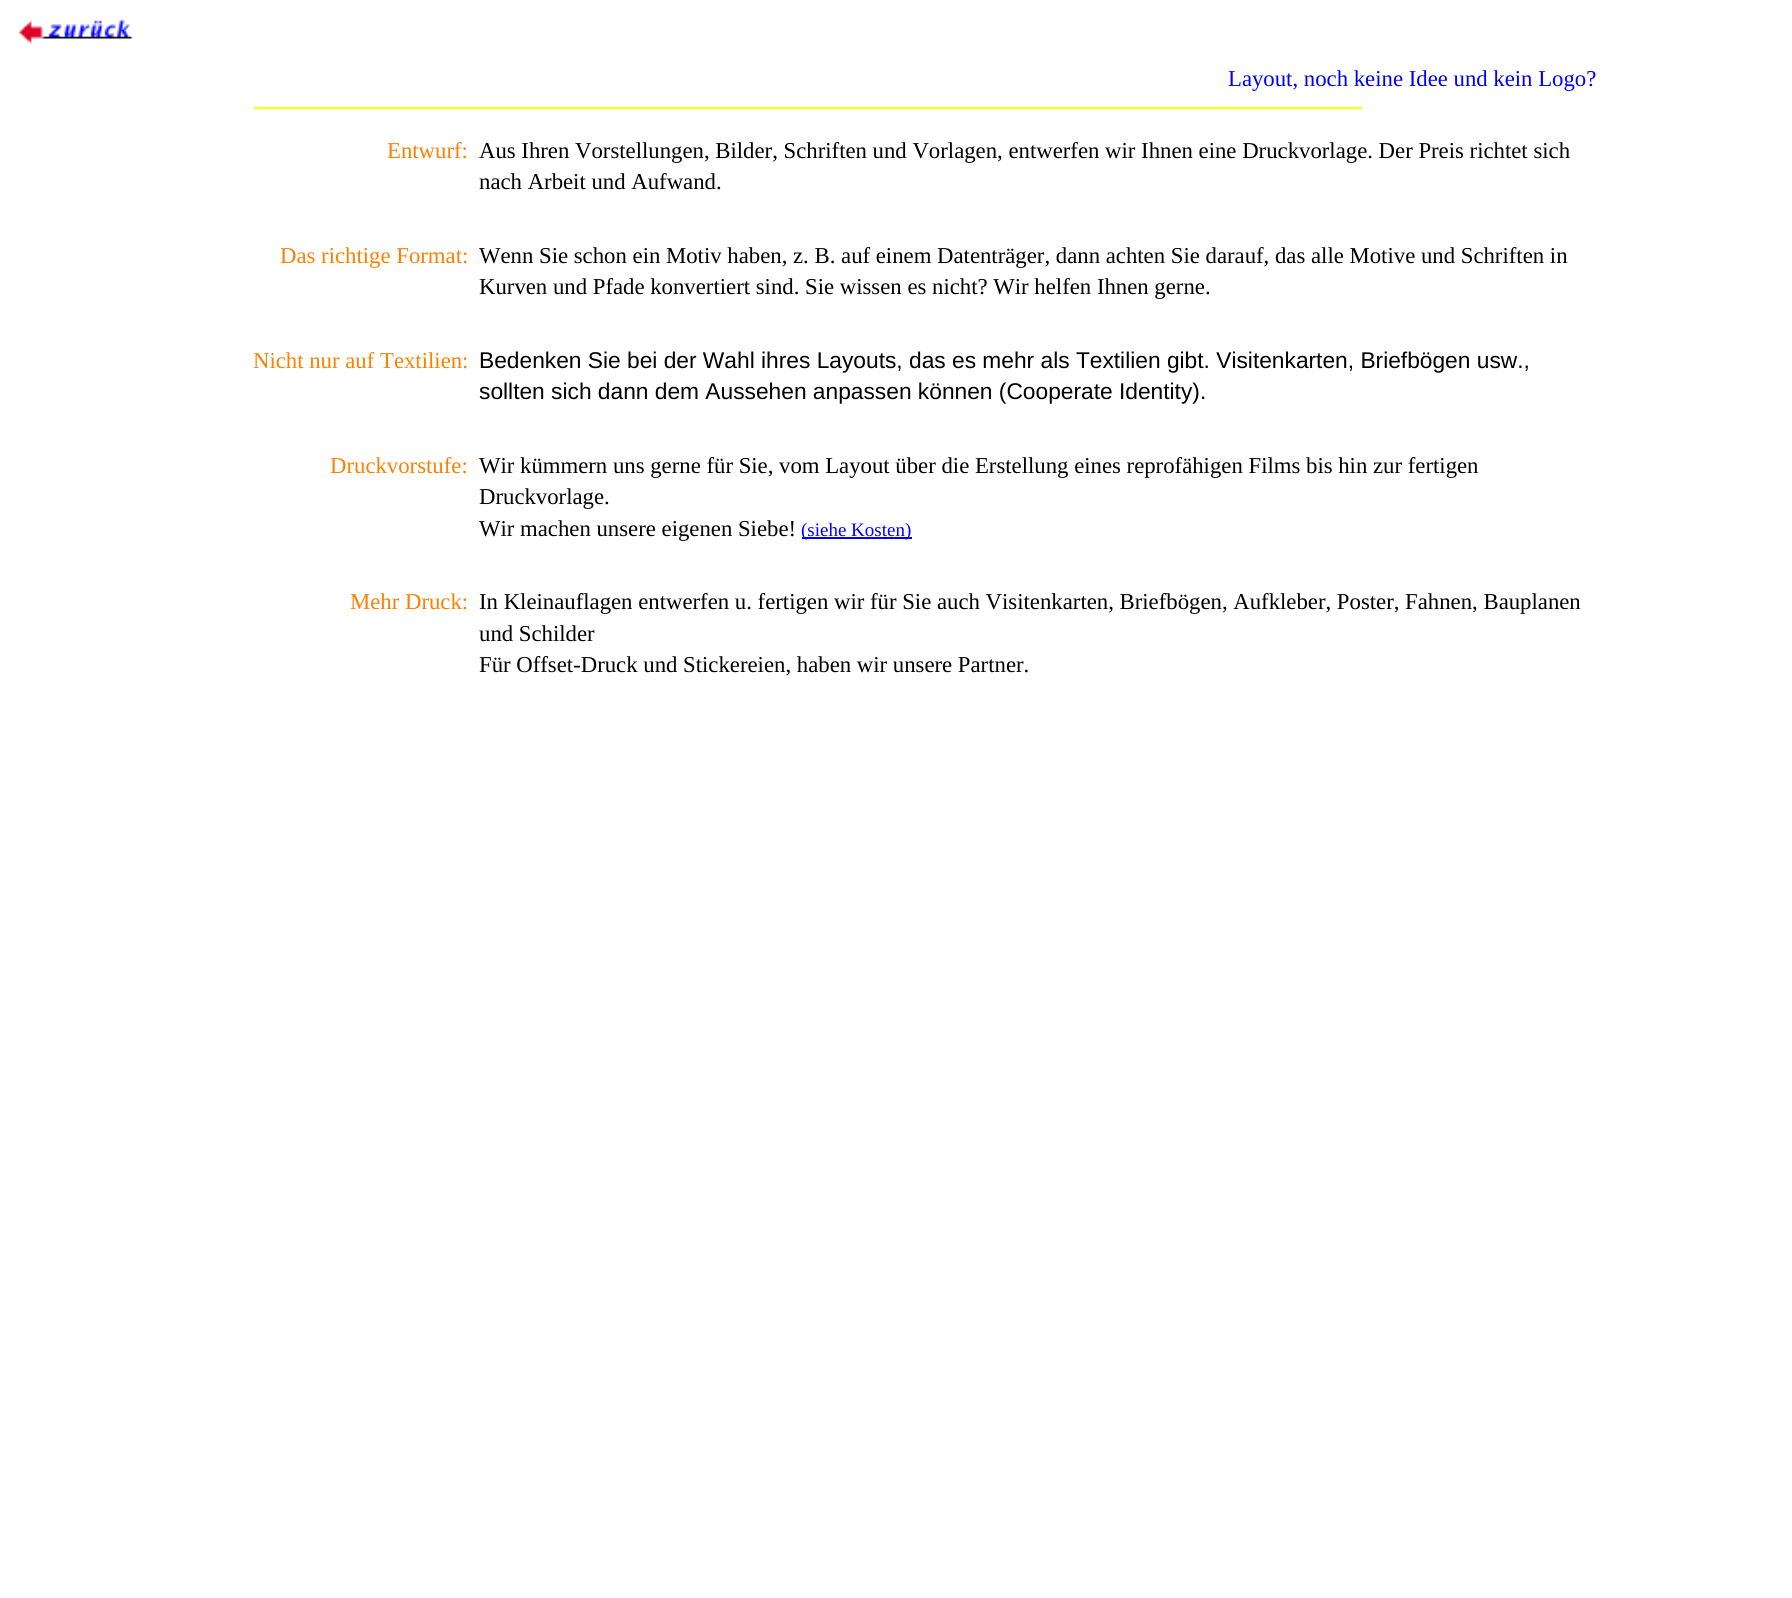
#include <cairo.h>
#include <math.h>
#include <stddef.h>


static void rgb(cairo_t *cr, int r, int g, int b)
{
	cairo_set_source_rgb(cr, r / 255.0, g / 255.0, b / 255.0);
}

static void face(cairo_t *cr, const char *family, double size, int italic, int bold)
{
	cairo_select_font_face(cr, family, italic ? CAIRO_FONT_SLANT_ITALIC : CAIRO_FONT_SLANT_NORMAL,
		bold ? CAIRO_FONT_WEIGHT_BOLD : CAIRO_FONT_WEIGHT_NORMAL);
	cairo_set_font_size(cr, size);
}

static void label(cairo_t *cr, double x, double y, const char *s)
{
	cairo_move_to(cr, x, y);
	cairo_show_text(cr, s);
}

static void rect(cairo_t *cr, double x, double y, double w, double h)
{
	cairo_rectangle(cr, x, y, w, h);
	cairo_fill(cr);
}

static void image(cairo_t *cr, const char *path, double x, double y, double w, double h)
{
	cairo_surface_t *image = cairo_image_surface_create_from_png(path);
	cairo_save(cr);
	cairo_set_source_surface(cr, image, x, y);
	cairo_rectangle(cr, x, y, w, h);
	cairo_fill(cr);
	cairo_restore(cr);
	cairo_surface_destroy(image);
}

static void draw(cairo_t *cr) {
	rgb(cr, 255, 255, 255);
	cairo_paint(cr);
	image(cr, "image0.png", 18, 19, 116, 26);
	face(cr, "Liberation Serif", 22.75, 0, 0);
	rgb(cr, 0, 0, 255);
	label(cr, 1228, 86, "Layout, noch keine Idee und kein Logo?");
	rgb(cr, 255, 255, 0);
	rect(cr, 254, 107, 1108, 2);
	rgb(cr, 255, 128, 0);
	label(cr, 387, 158, "Entwurf:");
	rgb(cr, 0, 0, 0);
	label(cr, 479, 158, "Aus Ihren Vorstellungen, Bilder, Schriften und Vorlagen, entwerfen wir Ihnen eine Druckvorlage. Der Preis richtet sich");
	label(cr, 479, 189, "nach Arbeit und Aufwand.");
	rgb(cr, 255, 128, 0);
	label(cr, 280, 263, "Das richtige Format:");
	rgb(cr, 0, 0, 0);
	label(cr, 479, 263, "Wenn Sie schon ein Motiv haben, z. B. auf einem Datenträger, dann achten Sie darauf, das alle Motive und Schriften in");
	label(cr, 479, 294, "Kurven und Pfade konvertiert sind. Sie wissen es nicht? Wir helfen Ihnen gerne.");
	rgb(cr, 255, 128, 0);
	label(cr, 253, 368, "Nicht nur auf Textilien:");
	face(cr, "Liberation Sans", 22.75, 0, 0);
	rgb(cr, 0, 0, 0);
	label(cr, 479, 368, "Bedenken Sie bei der Wahl ihres Layouts, das es mehr als Textilien gibt. Visitenkarten, Briefbögen usw.,");
	label(cr, 479, 399, "sollten sich dann dem Aussehen anpassen können (Cooperate Identity).");
	face(cr, "Liberation Serif", 22.75, 0, 0);
	rgb(cr, 255, 128, 0);
	label(cr, 330, 473, "Druckvorstufe:");
	rgb(cr, 0, 0, 0);
	label(cr, 479, 473, "Wir kümmern uns gerne für Sie, vom Layout über die Erstellung eines reprofähigen Films bis hin zur fertigen");
	label(cr, 479, 504, "Druckvorlage.");
	label(cr, 479, 536, "Wir machen unsere eigenen Siebe!");
	rgb(cr, 0, 0, 255);
	rect(cr, 802, 537, 110, 2);
	face(cr, "Liberation Serif", 19, 0, 0);
	label(cr, 801, 536, "(siehe Kosten)");
	face(cr, "Liberation Serif", 22.75, 0, 0);
	rgb(cr, 255, 128, 0);
	label(cr, 350, 609, "Mehr Druck:");
	rgb(cr, 0, 0, 0);
	label(cr, 479, 609, "In Kleinauflagen entwerfen u. fertigen wir für Sie auch Visitenkarten, Briefbögen, Aufkleber, Poster, Fahnen, Bauplanen");
	label(cr, 479, 641, "und Schilder");
	label(cr, 479, 672, "Für Offset-Druck und Stickereien, haben wir unsere Partner.");
}

int main(void) {
	cairo_surface_t *surface = cairo_image_surface_create(CAIRO_FORMAT_RGB24, 1792, 1598);
	cairo_t *cr = cairo_create(surface);
	cairo_font_options_t *options = cairo_font_options_create();
	cairo_font_options_set_hint_metrics(options, CAIRO_HINT_METRICS_OFF);
	cairo_font_options_set_hint_style(options, CAIRO_HINT_STYLE_NONE);
	cairo_set_font_options(cr, options);
	cairo_set_miter_limit(cr, 4);
	draw(cr);
	cairo_surface_write_to_png(surface, "render.png");
	cairo_font_options_destroy(options);
	cairo_destroy(cr);
	cairo_surface_destroy(surface);
	return 0;
}
